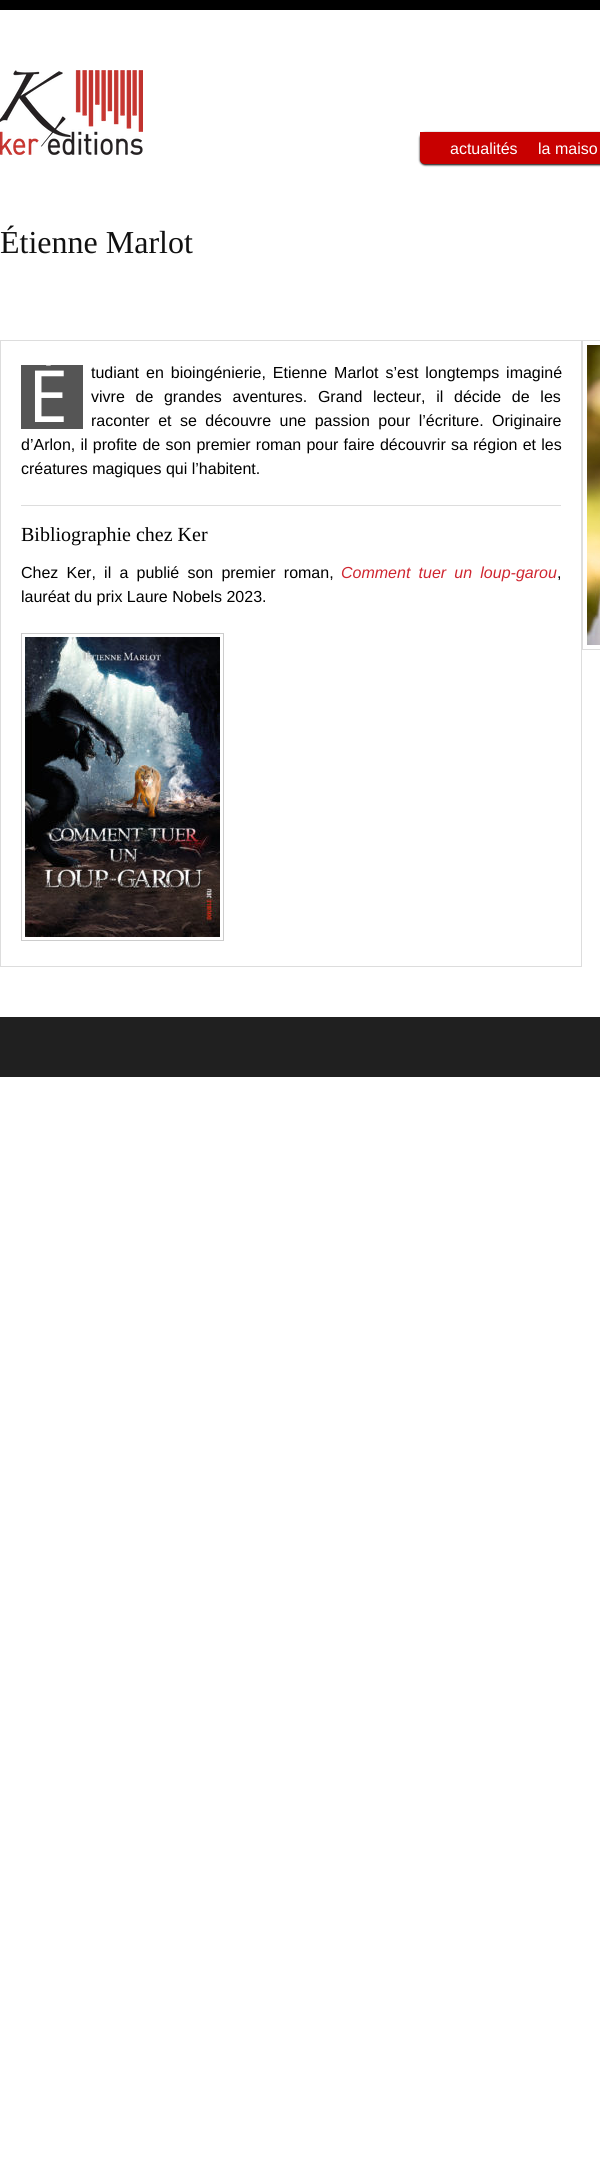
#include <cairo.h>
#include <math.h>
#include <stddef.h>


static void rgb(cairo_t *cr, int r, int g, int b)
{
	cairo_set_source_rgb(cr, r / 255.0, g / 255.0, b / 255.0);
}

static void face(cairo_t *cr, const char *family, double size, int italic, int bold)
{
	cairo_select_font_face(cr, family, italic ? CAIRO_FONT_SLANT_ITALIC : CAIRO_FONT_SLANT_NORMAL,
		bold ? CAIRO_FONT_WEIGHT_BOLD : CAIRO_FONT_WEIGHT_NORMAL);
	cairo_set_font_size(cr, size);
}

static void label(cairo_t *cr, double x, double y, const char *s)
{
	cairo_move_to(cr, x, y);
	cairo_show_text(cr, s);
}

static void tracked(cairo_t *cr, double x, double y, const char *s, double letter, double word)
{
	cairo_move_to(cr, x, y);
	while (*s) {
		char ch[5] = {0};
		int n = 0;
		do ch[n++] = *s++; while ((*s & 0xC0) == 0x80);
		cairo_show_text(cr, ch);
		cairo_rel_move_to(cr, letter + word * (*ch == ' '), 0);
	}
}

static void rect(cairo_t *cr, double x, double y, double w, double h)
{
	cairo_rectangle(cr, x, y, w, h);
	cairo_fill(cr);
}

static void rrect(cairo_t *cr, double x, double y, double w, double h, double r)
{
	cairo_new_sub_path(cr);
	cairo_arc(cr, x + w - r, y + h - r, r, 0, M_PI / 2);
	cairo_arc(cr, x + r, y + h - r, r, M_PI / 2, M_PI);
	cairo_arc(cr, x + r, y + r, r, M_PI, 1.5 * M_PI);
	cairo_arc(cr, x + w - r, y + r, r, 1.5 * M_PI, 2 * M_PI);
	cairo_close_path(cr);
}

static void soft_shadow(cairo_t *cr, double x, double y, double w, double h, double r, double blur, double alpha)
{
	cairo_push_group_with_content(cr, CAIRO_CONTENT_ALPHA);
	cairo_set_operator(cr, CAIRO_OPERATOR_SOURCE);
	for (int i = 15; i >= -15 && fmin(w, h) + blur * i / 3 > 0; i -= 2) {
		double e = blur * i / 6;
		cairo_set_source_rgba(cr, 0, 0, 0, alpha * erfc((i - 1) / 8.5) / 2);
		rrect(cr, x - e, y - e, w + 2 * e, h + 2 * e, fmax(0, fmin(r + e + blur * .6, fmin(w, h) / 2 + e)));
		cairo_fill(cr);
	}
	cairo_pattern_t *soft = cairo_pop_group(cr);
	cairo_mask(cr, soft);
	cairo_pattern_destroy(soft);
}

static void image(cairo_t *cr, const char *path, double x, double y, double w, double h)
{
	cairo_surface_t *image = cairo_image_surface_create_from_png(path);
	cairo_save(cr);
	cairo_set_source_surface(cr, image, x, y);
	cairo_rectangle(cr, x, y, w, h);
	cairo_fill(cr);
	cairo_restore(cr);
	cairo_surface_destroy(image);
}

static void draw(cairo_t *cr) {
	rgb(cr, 255, 255, 255);
	cairo_paint(cr);
	rgb(cr, 0, 0, 0);
	rect(cr, 0, 0, 600, 10);
	image(cr, "image0.png", 0, 70, 143, 85);
	rgb(cr, 0, 0, 0);
	soft_shadow(cr, 420, 133, 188, 32, 5, 1, 1);
	rgb(cr, 200, 0, 0);
	cairo_new_path(cr);
	cairo_move_to(cr, 420, 132);
	cairo_line_to(cr, 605, 132);
	cairo_line_to(cr, 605, 159);
	cairo_curve_to(cr, 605, 162, 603, 164, 600, 164);
	cairo_line_to(cr, 425, 164);
	cairo_curve_to(cr, 422, 164, 420, 162, 420, 159);
	cairo_close_path(cr);
	cairo_fill(cr);
	face(cr, "Liberation Sans", 16, 0, 0);
	rgb(cr, 255, 255, 255);
	label(cr, 450, 154, "actualités");
	label(cr, 538, 154, "la maiso");
	face(cr, "Liberation Serif", 32, 0, 0);
	rgb(cr, 17, 17, 17);
	label(cr, 0, 253, "Étienne Marlot");
	cairo_rectangle(cr, 0.5, 340.5, 581, 626);
	rgb(cr, 221, 221, 221);
	cairo_set_line_width(cr, 1);
	cairo_stroke(cr);
	rgb(cr, 85, 85, 85);
	rect(cr, 21, 365, 62, 64);
	face(cr, "Noto Sans", 72, 0, 0);
	rgb(cr, 255, 255, 255);
	label(cr, 28, 422, "É");
	face(cr, "Liberation Sans", 16, 0, 0);
	rgb(cr, 0, 0, 0);
	tracked(cr, 91, 378, "tudiant en bioingénierie, Etienne Marlot s’est longtemps imaginé", 0, 2.5);
	tracked(cr, 91, 402, "vivre de grandes aventures. Grand lecteur, il décide de les", 0, 6.25);
	tracked(cr, 91, 426, "raconter et se découvre une passion pour l’écriture. Originaire", 0, 4);
	tracked(cr, 21, 450, "d’Arlon, il profite de son premier roman pour faire découvrir sa région et les", 0, 0.75);
	label(cr, 21, 474, "créatures magiques qui l’habitent.");
	rgb(cr, 221, 221, 221);
	rect(cr, 21, 505, 540, 1);
	face(cr, "Liberation Serif", 20, 0, 0);
	rgb(cr, 0, 0, 0);
	label(cr, 21, 541, "Bibliographie chez Ker");
	face(cr, "Liberation Sans", 16, 0, 0);
	tracked(cr, 21, 578, "Chez Ker, il a publié son premier roman,", 0, 3.75);
	face(cr, "Liberation Sans", 16, 1, 0);
	rgb(cr, 207, 38, 48);
	tracked(cr, 341, 578, "Comment tuer un loup-garou", 0, 3.75);
	face(cr, "Liberation Sans", 16, 0, 0);
	rgb(cr, 0, 0, 0);
	label(cr, 557, 578, ",");
	label(cr, 21, 602, "lauréat du prix Laure Nobels 2023.");
	cairo_rectangle(cr, 21.5, 633.5, 202, 307);
	rgb(cr, 204, 204, 204);
	cairo_stroke(cr);
	image(cr, "image1.png", 25, 637, 195, 300);
	cairo_rectangle(cr, 582.5, 340.5, 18, 309);
	rgb(cr, 221, 221, 221);
	cairo_stroke(cr);
	image(cr, "image2.png", 587, 345, 13, 300);
	rgb(cr, 32, 32, 32);
	rect(cr, 0, 1017, 600, 60);
}

int main(void) {
	cairo_surface_t *surface = cairo_image_surface_create(CAIRO_FORMAT_RGB24, 600, 2177);
	cairo_t *cr = cairo_create(surface);
	cairo_font_options_t *options = cairo_font_options_create();
	cairo_font_options_set_hint_metrics(options, CAIRO_HINT_METRICS_OFF);
	cairo_font_options_set_hint_style(options, CAIRO_HINT_STYLE_NONE);
	cairo_set_font_options(cr, options);
	cairo_set_miter_limit(cr, 4);
	draw(cr);
	cairo_surface_write_to_png(surface, "render.png");
	cairo_font_options_destroy(options);
	cairo_destroy(cr);
	cairo_surface_destroy(surface);
	return 0;
}
